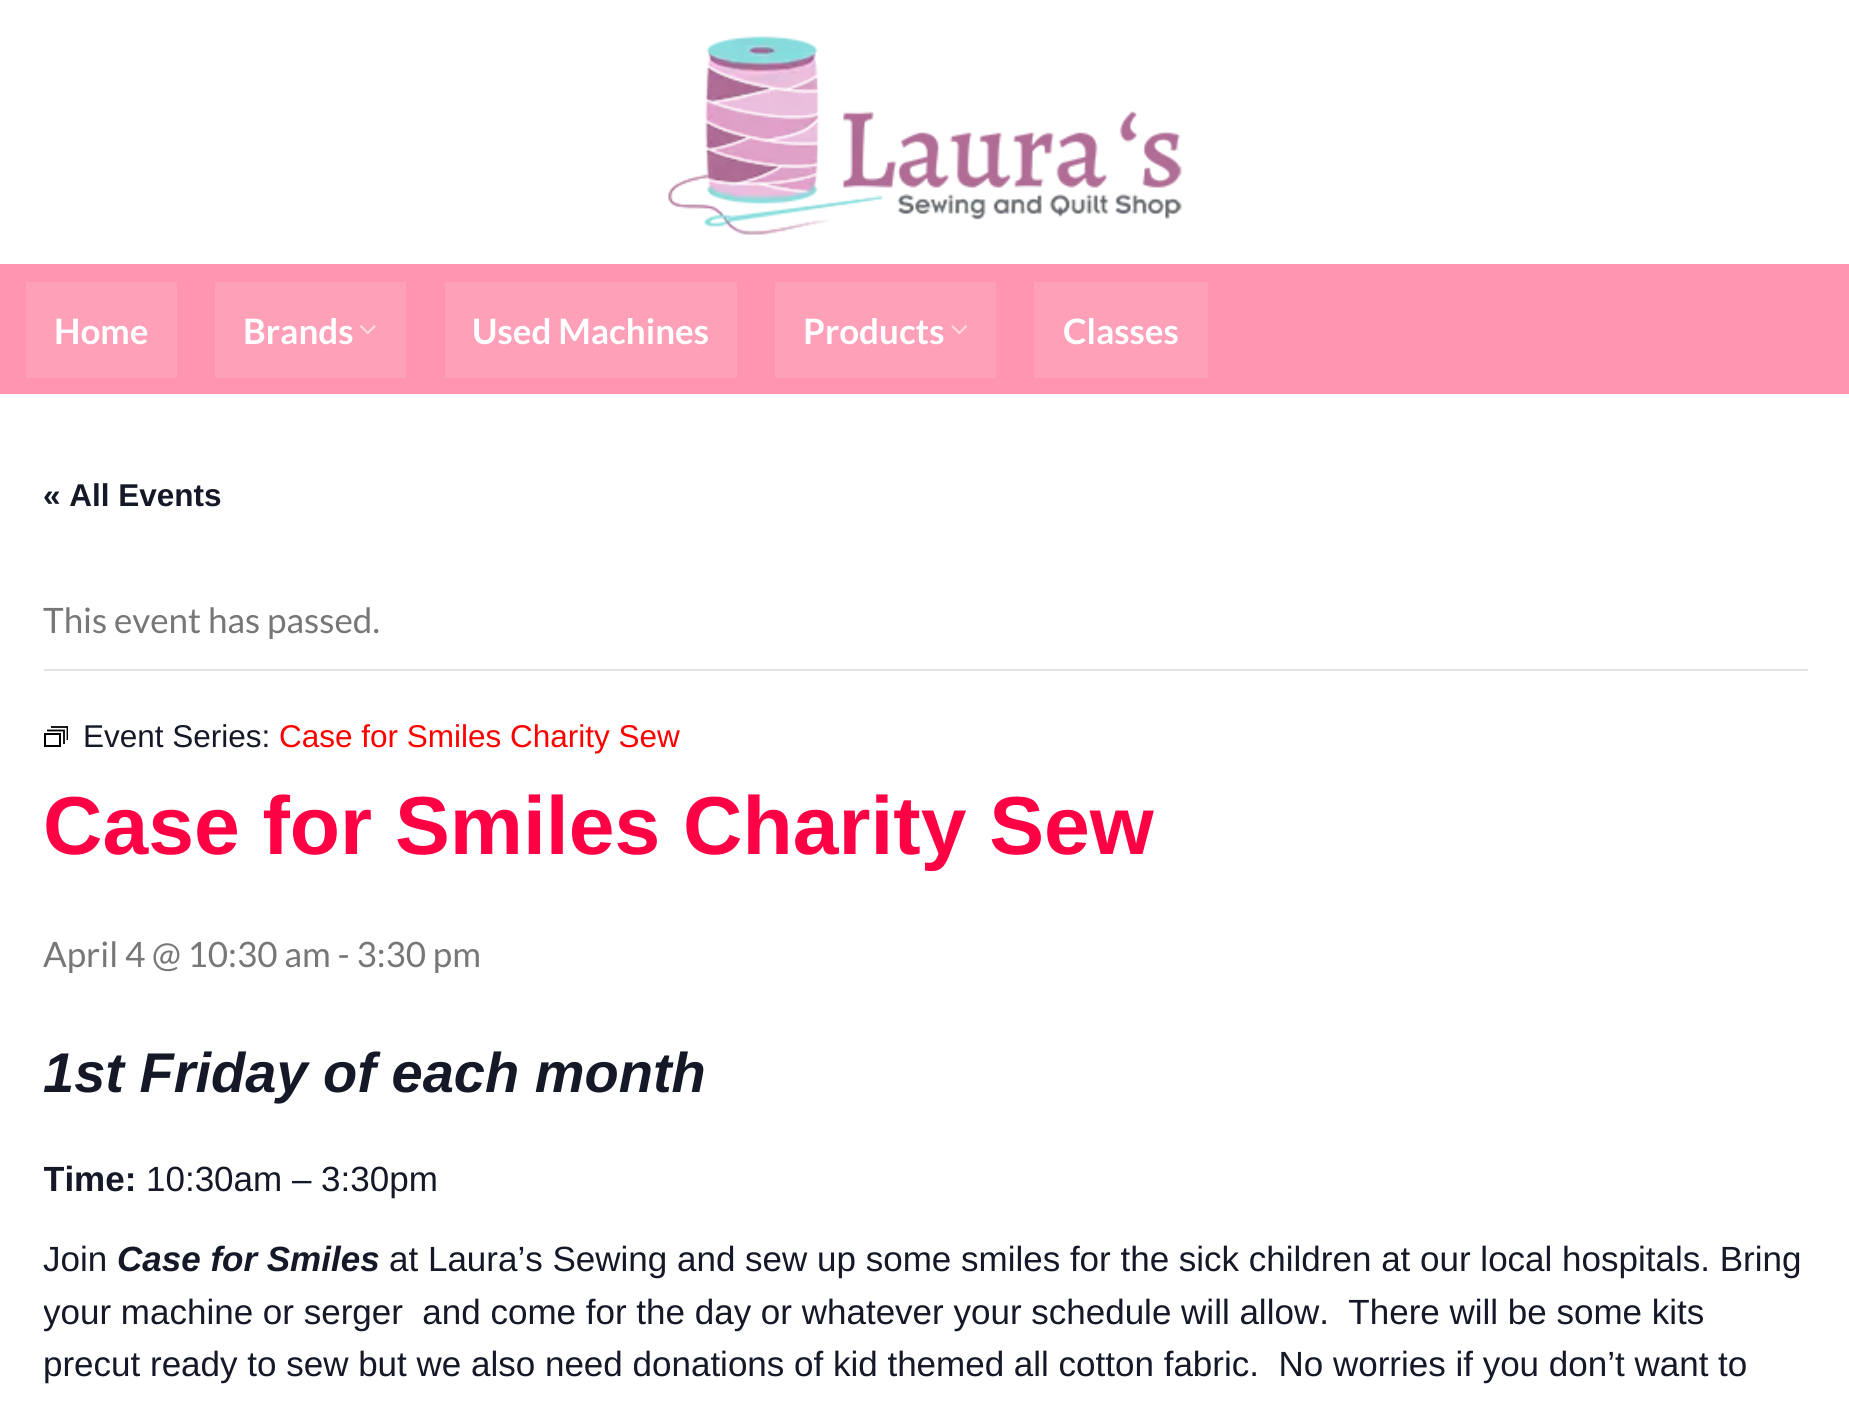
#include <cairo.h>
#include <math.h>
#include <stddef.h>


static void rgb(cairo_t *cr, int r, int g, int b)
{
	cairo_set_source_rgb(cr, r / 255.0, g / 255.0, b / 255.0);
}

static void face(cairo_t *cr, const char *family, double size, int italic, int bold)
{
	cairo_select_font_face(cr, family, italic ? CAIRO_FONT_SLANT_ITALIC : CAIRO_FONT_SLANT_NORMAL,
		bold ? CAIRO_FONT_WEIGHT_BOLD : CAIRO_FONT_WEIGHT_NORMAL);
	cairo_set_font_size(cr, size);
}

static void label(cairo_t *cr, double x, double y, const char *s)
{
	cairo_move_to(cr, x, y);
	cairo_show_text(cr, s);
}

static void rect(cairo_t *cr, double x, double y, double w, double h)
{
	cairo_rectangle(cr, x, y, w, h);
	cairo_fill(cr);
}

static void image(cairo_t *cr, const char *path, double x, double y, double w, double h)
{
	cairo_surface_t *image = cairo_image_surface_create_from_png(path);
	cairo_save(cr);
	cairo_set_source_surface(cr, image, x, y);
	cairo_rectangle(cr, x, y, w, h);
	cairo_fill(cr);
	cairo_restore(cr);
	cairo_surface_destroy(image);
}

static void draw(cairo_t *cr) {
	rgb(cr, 255, 255, 255);
	cairo_paint(cr);
	image(cr, "image0.png", 668, 36, 514, 199);
	rgb(cr, 255, 149, 177);
	rect(cr, 0, 264, 1849, 130);
	rgb(cr, 255, 160, 185);
	rect(cr, 26, 282, 151, 96);
	face(cr, "Lato", 35, 0, 1);
	rgb(cr, 255, 255, 255);
	label(cr, 54, 344, "Home");
	rgb(cr, 255, 160, 185);
	rect(cr, 215, 282, 191, 96);
	rgb(cr, 255, 255, 255);
	label(cr, 243, 344, "Brands");
	image(cr, "image1.png", 360, 325, 16, 10);
	rgb(cr, 255, 160, 185);
	rect(cr, 445, 282, 292, 96);
	rgb(cr, 255, 255, 255);
	label(cr, 472, 344, "Used Machines");
	rgb(cr, 255, 160, 185);
	rect(cr, 775, 282, 221, 96);
	rgb(cr, 255, 255, 255);
	label(cr, 803, 344, "Products");
	image(cr, "image2.png", 951, 325, 16, 10);
	rgb(cr, 255, 160, 185);
	rect(cr, 1034, 282, 174, 96);
	rgb(cr, 255, 255, 255);
	label(cr, 1063, 344, "Classes");
	face(cr, "Liberation Sans", 31.5, 0, 1);
	rgb(cr, 20, 24, 39);
	label(cr, 43, 506, "« All Events");
	rgb(cr, 228, 228, 228);
	rect(cr, 44, 669, 1764, 2);
	face(cr, "Lato", 35, 0, 0);
	rgb(cr, 119, 119, 119);
	label(cr, 43, 633, "This event has passed.");
	cairo_rectangle(cr, 45, 734, 15, 12);
	rgb(cr, 0, 0, 0);
	cairo_stroke(cr);
	cairo_new_path(cr);
	cairo_move_to(cr, 47, 730.5);
	cairo_line_to(cr, 64, 730.5);
	cairo_line_to(cr, 64, 744);
	cairo_set_line_width(cr, 1.8);
	cairo_stroke(cr);
	cairo_save(cr);
	cairo_rectangle(cr, 44, 726, 24, 21);
	cairo_clip(cr);
	cairo_new_path(cr);
	cairo_move_to(cr, 51, 727);
	cairo_line_to(cr, 67.5, 727);
	cairo_line_to(cr, 67.5, 740);
	cairo_stroke(cr);
	cairo_restore(cr);
	face(cr, "Liberation Sans", 31.5, 0, 0);
	rgb(cr, 20, 24, 39);
	label(cr, 83, 747, "Event Series:");
	rgb(cr, 255, 0, 0);
	label(cr, 279, 747, "Case for Smiles Charity Sew");
	face(cr, "Liberation Sans", 82.25, 0, 1);
	rgb(cr, 255, 0, 68);
	label(cr, 43, 854, "Case for Smiles Charity Sew");
	face(cr, "Lato", 35, 0, 0);
	rgb(cr, 119, 119, 119);
	label(cr, 43, 967, "April 4 @ 10:30 am - 3:30 pm");
	face(cr, "Liberation Sans", 56, 1, 1);
	rgb(cr, 20, 24, 39);
	label(cr, 43, 1092, "1st Friday of each month");
	cairo_save(cr);
	cairo_rectangle(cr, 44, 1038, 1764, 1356);
	cairo_clip(cr);
	face(cr, "Liberation Sans", 35, 0, 1);
	label(cr, 43, 1191, "Time:");
	cairo_restore(cr);
	face(cr, "Liberation Sans", 35, 0, 0);
	label(cr, 146, 1191, "10:30am – 3:30pm");
	label(cr, 43, 1271, "Join");
	face(cr, "Liberation Sans", 35, 1, 1);
	label(cr, 117, 1271, "Case for Smiles");
	face(cr, "Liberation Sans", 35, 0, 0);
	label(cr, 389, 1271, "at Laura’s Sewing and sew up some smiles for the sick children at our local hospitals. Bring");
	cairo_save(cr);
	cairo_rectangle(cr, 44, 1038, 1764, 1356);
	cairo_clip(cr);
	label(cr, 43, 1324, "your machine or serger  and come for the day or whatever your schedule will allow.  There will be some kits");
	cairo_restore(cr);
	label(cr, 43, 1376, "precut ready to sew but we also need donations of kid themed all cotton fabric.  No worries if you don’t want to");
}

int main(void) {
	cairo_surface_t *surface = cairo_image_surface_create(CAIRO_FORMAT_RGB24, 1849, 1407);
	cairo_t *cr = cairo_create(surface);
	cairo_font_options_t *options = cairo_font_options_create();
	cairo_font_options_set_hint_metrics(options, CAIRO_HINT_METRICS_OFF);
	cairo_font_options_set_hint_style(options, CAIRO_HINT_STYLE_NONE);
	cairo_set_font_options(cr, options);
	cairo_set_miter_limit(cr, 4);
	draw(cr);
	cairo_surface_write_to_png(surface, "render.png");
	cairo_font_options_destroy(options);
	cairo_destroy(cr);
	cairo_surface_destroy(surface);
	return 0;
}
